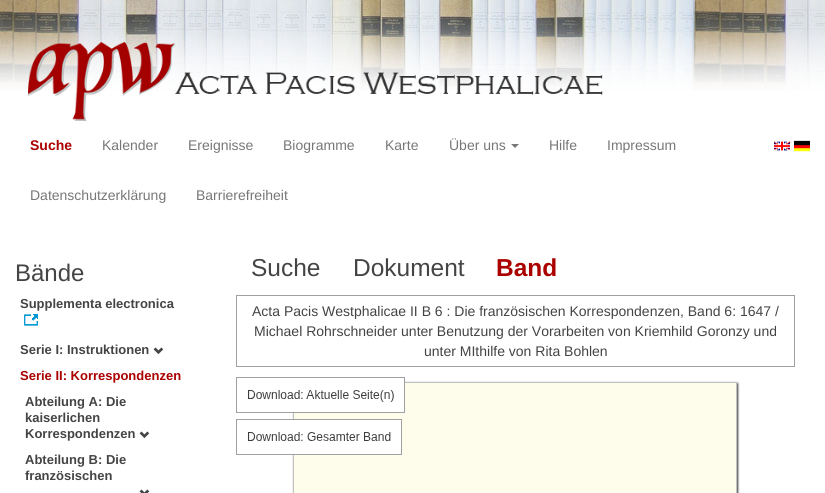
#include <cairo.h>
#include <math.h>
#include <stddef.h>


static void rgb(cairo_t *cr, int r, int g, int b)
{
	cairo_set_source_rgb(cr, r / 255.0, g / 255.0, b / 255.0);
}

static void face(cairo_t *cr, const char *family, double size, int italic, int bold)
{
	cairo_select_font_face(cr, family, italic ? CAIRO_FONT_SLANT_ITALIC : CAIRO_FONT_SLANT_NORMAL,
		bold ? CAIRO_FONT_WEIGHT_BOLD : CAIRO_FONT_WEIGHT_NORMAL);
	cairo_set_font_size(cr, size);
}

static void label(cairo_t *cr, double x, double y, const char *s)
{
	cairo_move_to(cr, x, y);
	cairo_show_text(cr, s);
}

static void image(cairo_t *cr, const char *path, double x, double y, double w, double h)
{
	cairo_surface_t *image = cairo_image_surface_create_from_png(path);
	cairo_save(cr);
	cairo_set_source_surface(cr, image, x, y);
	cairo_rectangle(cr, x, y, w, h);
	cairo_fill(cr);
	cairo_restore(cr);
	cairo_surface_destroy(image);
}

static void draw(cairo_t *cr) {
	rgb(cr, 255, 255, 255);
	cairo_paint(cr);
	image(cr, "image0.png", 0, 0, 825, 91);
	image(cr, "image1.png", 28, 42, 575, 79);
	face(cr, "Liberation Sans", 14, 0, 1);
	rgb(cr, 170, 0, 0);
	label(cr, 30, 150, "Suche");
	face(cr, "Liberation Sans", 14, 0, 0);
	rgb(cr, 119, 119, 119);
	label(cr, 102, 150, "Kalender");
	label(cr, 188, 150, "Ereignisse");
	label(cr, 283, 150, "Biogramme");
	label(cr, 385, 150, "Karte");
	label(cr, 449, 150, "Über uns");
	cairo_new_path(cr);
	cairo_move_to(cr, 511, 144);
	cairo_line_to(cr, 519, 144);
	cairo_line_to(cr, 515, 148);
	cairo_close_path(cr);
	cairo_fill(cr);
	label(cr, 549, 150, "Hilfe");
	label(cr, 607, 150, "Impressum");
	label(cr, 30, 200, "Datenschutzerklärung");
	label(cr, 196, 200, "Barrierefreiheit");
	image(cr, "image2.png", 774, 141, 16, 10);
	image(cr, "image3.png", 794, 140, 16, 12);
	face(cr, "Liberation Sans", 24, 0, 0);
	rgb(cr, 68, 68, 68);
	label(cr, 15, 281, "Bände");
	face(cr, "Liberation Sans", 13, 0, 1);
	label(cr, 20, 308, "Supplementa electronica");
	image(cr, "image4.png", 24, 314, 14, 12);
	label(cr, 20, 354, "Serie I: Instruktionen");
	image(cr, "image5.png", 153, 347, 11, 8);
	rgb(cr, 170, 0, 0);
	label(cr, 20, 380, "Serie II: Korrespondenzen");
	rgb(cr, 68, 68, 68);
	label(cr, 25, 406, "Abteilung A: Die");
	label(cr, 25, 422, "kaiserlichen");
	label(cr, 25, 438, "Korrespondenzen");
	image(cr, "image5.png", 139, 431, 11, 8);
	label(cr, 25, 464, "Abteilung B: Die");
	label(cr, 25, 480, "französischen");
	image(cr, "image6.png", 139, 489, 11, 4);
	face(cr, "Liberation Sans", 24.5, 0, 0);
	label(cr, 251, 276, "Suche");
	label(cr, 353, 276, "Dokument");
	face(cr, "Liberation Sans", 24.5, 0, 1);
	rgb(cr, 170, 0, 0);
	label(cr, 496, 276, "Band");
	cairo_rectangle(cr, 236.5, 295.5, 558, 71);
	rgb(cr, 160, 160, 160);
	cairo_set_line_width(cr, 1);
	cairo_stroke(cr);
	face(cr, "Liberation Sans", 14, 0, 0);
	rgb(cr, 68, 68, 68);
	label(cr, 252, 316, "Acta Pacis Westphalicae II B 6 : Die französischen Korrespondenzen, Band 6: 1647 /");
	label(cr, 254, 336, "Michael Rohrschneider unter Benutzung der Vorarbeiten von Kriemhild Goronzy und");
	label(cr, 424, 356, "unter MIthilfe von Rita Bohlen");
	image(cr, "image7.png", 236, 377, 504, 116);
}

int main(void) {
	cairo_surface_t *surface = cairo_image_surface_create(CAIRO_FORMAT_RGB24, 825, 493);
	cairo_t *cr = cairo_create(surface);
	cairo_font_options_t *options = cairo_font_options_create();
	cairo_font_options_set_hint_metrics(options, CAIRO_HINT_METRICS_OFF);
	cairo_font_options_set_hint_style(options, CAIRO_HINT_STYLE_NONE);
	cairo_set_font_options(cr, options);
	cairo_set_miter_limit(cr, 4);
	draw(cr);
	cairo_surface_write_to_png(surface, "render.png");
	cairo_font_options_destroy(options);
	cairo_destroy(cr);
	cairo_surface_destroy(surface);
	return 0;
}
